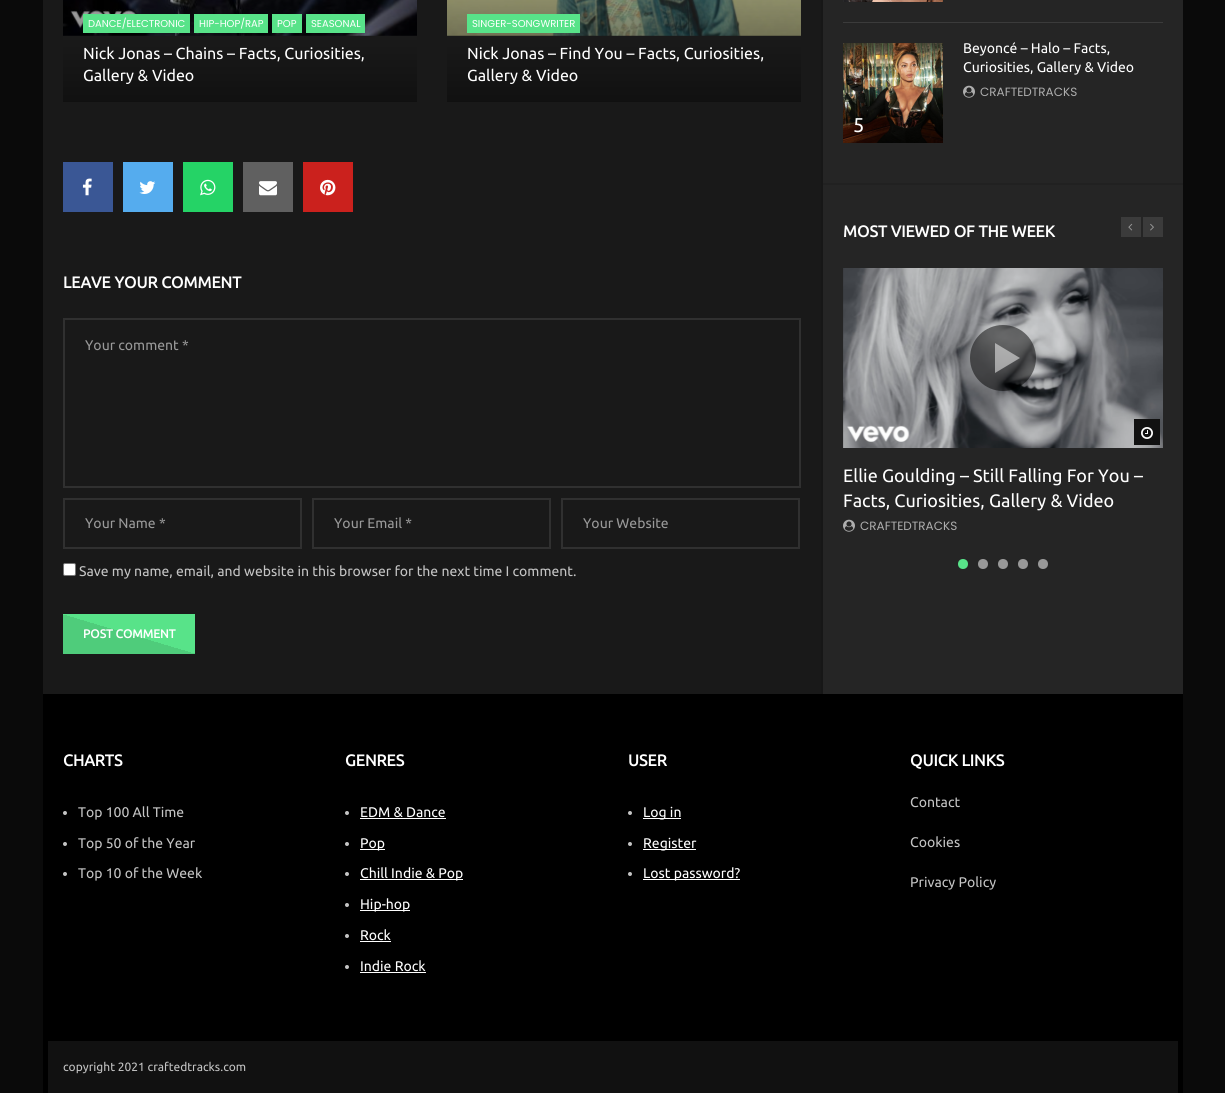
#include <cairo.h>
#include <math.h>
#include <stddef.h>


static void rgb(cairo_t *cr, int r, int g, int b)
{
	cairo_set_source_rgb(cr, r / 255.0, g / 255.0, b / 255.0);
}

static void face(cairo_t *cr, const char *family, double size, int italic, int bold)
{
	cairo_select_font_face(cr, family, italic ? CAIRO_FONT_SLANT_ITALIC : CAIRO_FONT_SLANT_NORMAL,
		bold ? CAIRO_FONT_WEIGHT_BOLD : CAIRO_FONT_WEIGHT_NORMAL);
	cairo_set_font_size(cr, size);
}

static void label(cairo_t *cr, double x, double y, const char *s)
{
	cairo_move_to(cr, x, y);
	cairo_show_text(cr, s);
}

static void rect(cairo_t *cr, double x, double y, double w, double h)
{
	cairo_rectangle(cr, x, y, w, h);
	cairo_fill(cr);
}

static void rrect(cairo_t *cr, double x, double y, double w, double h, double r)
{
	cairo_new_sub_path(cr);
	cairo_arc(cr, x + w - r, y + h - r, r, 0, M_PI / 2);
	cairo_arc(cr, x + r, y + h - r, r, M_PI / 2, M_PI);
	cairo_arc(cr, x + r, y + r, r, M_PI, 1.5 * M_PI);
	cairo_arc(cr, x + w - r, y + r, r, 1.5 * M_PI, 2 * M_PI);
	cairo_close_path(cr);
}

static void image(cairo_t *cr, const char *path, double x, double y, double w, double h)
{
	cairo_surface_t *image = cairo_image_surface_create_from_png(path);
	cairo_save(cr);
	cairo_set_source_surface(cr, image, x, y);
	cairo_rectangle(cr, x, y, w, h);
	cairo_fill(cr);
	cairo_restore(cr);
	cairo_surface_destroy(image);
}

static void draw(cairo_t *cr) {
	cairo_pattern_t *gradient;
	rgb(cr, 10, 10, 10);
	cairo_paint(cr);
	rgb(cr, 25, 25, 25);
	rect(cr, 43, 0, 778, 694);
	rgb(cr, 23, 23, 23);
	rect(cr, 821, 0, 2, 694);
	rgb(cr, 48, 48, 48);
	rect(cr, 63, 0, 354, 102);
	image(cr, "image0.png", 63, 0, 354, 36);
	gradient = cairo_pattern_create_linear(240, -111, 240, 102);
	cairo_pattern_add_color_stop_rgba(gradient, 0, 0, 0, 0, 0);
	cairo_pattern_add_color_stop_rgba(gradient, 1, 0, 0, 0, 0.66);
	cairo_set_source(cr, gradient);
	cairo_pattern_destroy(gradient);
	rect(cr, 63, 0, 354, 102);
	rgb(cr, 88, 227, 137);
	rect(cr, 83, 14, 107, 19);
	face(cr, "Poppins", 10, 0, 0);
	rgb(cr, 255, 255, 255);
	label(cr, 88, 27, "DANCE/ELECTRONIC");
	rgb(cr, 88, 227, 137);
	rect(cr, 194, 14, 74, 19);
	rgb(cr, 255, 255, 255);
	label(cr, 199, 27, "HIP-HOP/RAP");
	rgb(cr, 88, 227, 137);
	rect(cr, 272, 14, 30, 19);
	rgb(cr, 255, 255, 255);
	label(cr, 277, 27, "POP");
	rgb(cr, 88, 227, 137);
	rect(cr, 306, 14, 59, 19);
	rgb(cr, 255, 255, 255);
	label(cr, 311, 27, "SEASONAL");
	face(cr, "Ubuntu", 16, 0, 0);
	label(cr, 83, 59, "Nick Jonas – Chains – Facts, Curiosities,");
	label(cr, 83, 81, "Gallery & Video");
	rgb(cr, 48, 48, 48);
	rect(cr, 447, 0, 354, 102);
	image(cr, "image1.png", 447, 0, 354, 36);
	gradient = cairo_pattern_create_linear(624, -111, 624, 102);
	cairo_pattern_add_color_stop_rgba(gradient, 0, 0, 0, 0, 0);
	cairo_pattern_add_color_stop_rgba(gradient, 1, 0, 0, 0, 0.66);
	cairo_set_source(cr, gradient);
	cairo_pattern_destroy(gradient);
	rect(cr, 447, 0, 354, 102);
	rgb(cr, 88, 227, 137);
	rect(cr, 467, 14, 113, 19);
	face(cr, "Poppins", 10, 0, 0);
	rgb(cr, 255, 255, 255);
	label(cr, 472, 27, "SINGER-SONGWRITER");
	face(cr, "Ubuntu", 16, 0, 0);
	label(cr, 467, 59, "Nick Jonas – Find You – Facts, Curiosities,");
	label(cr, 467, 81, "Gallery & Video");
	rgb(cr, 58, 87, 149);
	rect(cr, 63, 162, 50, 50);
	image(cr, "image2.png", 82, 178, 10, 18);
	rgb(cr, 85, 172, 238);
	rect(cr, 123, 162, 50, 50);
	image(cr, "image3.png", 139, 181, 17, 13);
	rgb(cr, 37, 211, 102);
	rect(cr, 183, 162, 50, 50);
	image(cr, "image4.png", 200, 179, 16, 17);
	rgb(cr, 96, 96, 96);
	rect(cr, 243, 162, 50, 50);
	image(cr, "image5.png", 259, 181, 18, 15);
	rgb(cr, 203, 33, 29);
	rect(cr, 303, 162, 50, 50);
	image(cr, "image6.png", 320, 179, 16, 17);
	face(cr, "Ubuntu", 16, 0, 1);
	rgb(cr, 255, 255, 255);
	label(cr, 63, 288, "LEAVE YOUR COMMENT");
	cairo_rectangle(cr, 64, 319, 736, 168);
	rgb(cr, 48, 48, 48);
	cairo_stroke(cr);
	face(cr, "Ubuntu", 14, 0, 0);
	rgb(cr, 153, 153, 153);
	label(cr, 85, 350, "Your comment *");
	cairo_rectangle(cr, 64, 499, 237, 49);
	rgb(cr, 48, 48, 48);
	cairo_stroke(cr);
	rgb(cr, 153, 153, 153);
	label(cr, 85, 528, "Your Name *");
	cairo_rectangle(cr, 313, 499, 237, 49);
	rgb(cr, 48, 48, 48);
	cairo_stroke(cr);
	rgb(cr, 153, 153, 153);
	label(cr, 334, 528, "Your Email *");
	cairo_rectangle(cr, 562, 499, 237, 49);
	rgb(cr, 48, 48, 48);
	cairo_stroke(cr);
	rgb(cr, 153, 153, 153);
	label(cr, 583, 528, "Your Website");
	rgb(cr, 255, 255, 255);
	rrect(cr, 63.5, 563.5, 12, 12, 1.5);
	cairo_fill_preserve(cr);
	rgb(cr, 118, 118, 118);
	cairo_set_line_width(cr, 1);
	cairo_stroke(cr);
	rgb(cr, 196, 196, 196);
	label(cr, 79, 576, "Save my name, email, and website in this browser for the next time I comment.");
	gradient = cairo_pattern_create_linear(140, 597, 118, 671);
	cairo_pattern_add_color_stop_rgba(gradient, 0.5, 0.345, 0.89, 0.537, 1);
	cairo_pattern_add_color_stop_rgba(gradient, 0.5, 0.31, 0.8, 0.482, 1);
	cairo_set_source(cr, gradient);
	cairo_pattern_destroy(gradient);
	rect(cr, 63, 614, 132, 40);
	face(cr, "Ubuntu", 12, 0, 1);
	rgb(cr, 255, 255, 255);
	label(cr, 83, 638, "POST COMMENT");
	rgb(cr, 37, 37, 37);
	rect(cr, 823, 0, 360, 694);
	rgb(cr, 33, 33, 33);
	rect(cr, 823, 183, 360, 2);
	rgb(cr, 59, 59, 59);
	rect(cr, 843, 22, 320, 1);
	image(cr, "image7.png", 843, 0, 100, 2);
	face(cr, "Ubuntu", 14, 0, 0);
	rgb(cr, 255, 255, 255);
	label(cr, 963, 53, "Beyoncé – Halo – Facts,");
	label(cr, 963, 72, "Curiosities, Gallery & Video");
	image(cr, "image8.png", 963, 85, 12, 13);
	face(cr, "Poppins", 12, 0, 0);
	rgb(cr, 174, 174, 174);
	label(cr, 980, 96, "CRAFTEDTRACKS");
	image(cr, "image9.png", 843, 43, 100, 100);
	face(cr, "Ubuntu", 20, 0, 0);
	rgb(cr, 255, 255, 255);
	label(cr, 853, 132, "5");
	face(cr, "Ubuntu", 16, 0, 1);
	label(cr, 843, 237, "MOST VIEWED OF THE WEEK");
	rgb(cr, 59, 59, 59);
	rect(cr, 1121, 217, 20, 20);
	image(cr, "image10.png", 1128, 223, 5, 8);
	rect(cr, 1143, 217, 20, 20);
	image(cr, "image11.png", 1150, 223, 4, 8);
	image(cr, "image12.png", 843, 268, 320, 180);
	cairo_set_source_rgba(cr, 0, 0, 0, 0.5);
	cairo_arc(cr, 1003, 358, 33, 0, 2 * M_PI);
	cairo_fill(cr);
	cairo_set_source_rgba(cr, 1, 1, 1, 0.5);
	cairo_new_path(cr);
	cairo_move_to(cr, 995, 373);
	cairo_line_to(cr, 995, 343);
	cairo_line_to(cr, 1020, 358);
	cairo_close_path(cr);
	cairo_fill(cr);
	rgb(cr, 17, 17, 17);
	rect(cr, 1134, 419, 26, 26);
	image(cr, "image13.png", 1141, 427, 12, 12);
	face(cr, "Ubuntu", 18, 0, 0);
	rgb(cr, 255, 255, 255);
	label(cr, 843, 482, "Ellie Goulding – Still Falling For You –");
	label(cr, 843, 507, "Facts, Curiosities, Gallery & Video");
	image(cr, "image8.png", 843, 519, 12, 13);
	face(cr, "Poppins", 12, 0, 0);
	rgb(cr, 174, 174, 174);
	label(cr, 860, 530, "CRAFTEDTRACKS");
	rgb(cr, 88, 227, 137);
	cairo_new_path(cr);
	cairo_arc(cr, 963, 564, 5, 0, 2 * M_PI);
	cairo_fill(cr);
	rgb(cr, 153, 153, 153);
	cairo_arc(cr, 983, 564, 5, 0, 2 * M_PI);
	cairo_fill(cr);
	cairo_arc(cr, 1003, 564, 5, 0, 2 * M_PI);
	cairo_fill(cr);
	cairo_arc(cr, 1023, 564, 5, 0, 2 * M_PI);
	cairo_fill(cr);
	cairo_arc(cr, 1043, 564, 5, 0, 2 * M_PI);
	cairo_fill(cr);
	rgb(cr, 0, 0, 0);
	rect(cr, 43, 694, 1140, 399);
	face(cr, "Ubuntu", 16, 0, 1);
	rgb(cr, 255, 255, 255);
	label(cr, 63, 766, "CHARTS");
	rgb(cr, 196, 196, 196);
	cairo_new_path(cr);
	cairo_arc(cr, 65, 813, 2, 0, 2 * M_PI);
	cairo_fill(cr);
	face(cr, "Ubuntu", 14, 0, 0);
	label(cr, 78, 817, "Top 100 All Time");
	cairo_new_path(cr);
	cairo_arc(cr, 65, 844, 2, 0, 2 * M_PI);
	cairo_fill(cr);
	label(cr, 78, 848, "Top 50 of the Year");
	cairo_new_path(cr);
	cairo_arc(cr, 65, 874, 2, 0, 2 * M_PI);
	cairo_fill(cr);
	label(cr, 78, 878, "Top 10 of the Week");
	face(cr, "Ubuntu", 16, 0, 1);
	rgb(cr, 255, 255, 255);
	label(cr, 345, 766, "GENRES");
	rgb(cr, 196, 196, 196);
	cairo_new_path(cr);
	cairo_arc(cr, 347, 813, 2, 0, 2 * M_PI);
	cairo_fill(cr);
	face(cr, "Ubuntu", 14, 0, 0);
	rgb(cr, 255, 255, 255);
	label(cr, 360, 817, "EDM & Dance");
	rect(cr, 360, 818, 86, 1);
	rgb(cr, 196, 196, 196);
	cairo_new_path(cr);
	cairo_arc(cr, 347, 844, 2, 0, 2 * M_PI);
	cairo_fill(cr);
	rgb(cr, 255, 255, 255);
	rect(cr, 360, 849, 25, 1);
	label(cr, 360, 848, "Pop");
	rgb(cr, 196, 196, 196);
	cairo_new_path(cr);
	cairo_arc(cr, 347, 874, 2, 0, 2 * M_PI);
	cairo_fill(cr);
	rgb(cr, 255, 255, 255);
	rect(cr, 360, 879, 103, 1);
	label(cr, 360, 878, "Chill Indie & Pop");
	rgb(cr, 196, 196, 196);
	cairo_new_path(cr);
	cairo_arc(cr, 347, 905, 2, 0, 2 * M_PI);
	cairo_fill(cr);
	rgb(cr, 255, 255, 255);
	rect(cr, 360, 910, 50, 1);
	label(cr, 360, 909, "Hip-hop");
	rgb(cr, 196, 196, 196);
	cairo_new_path(cr);
	cairo_arc(cr, 347, 936, 2, 0, 2 * M_PI);
	cairo_fill(cr);
	rgb(cr, 255, 255, 255);
	label(cr, 360, 940, "Rock");
	rect(cr, 360, 941, 31, 1);
	rgb(cr, 196, 196, 196);
	cairo_new_path(cr);
	cairo_arc(cr, 347, 967, 2, 0, 2 * M_PI);
	cairo_fill(cr);
	rgb(cr, 255, 255, 255);
	label(cr, 360, 971, "Indie Rock");
	rect(cr, 360, 972, 66, 1);
	face(cr, "Ubuntu", 16, 0, 1);
	label(cr, 628, 766, "USER");
	rgb(cr, 196, 196, 196);
	cairo_new_path(cr);
	cairo_arc(cr, 630, 813, 2, 0, 2 * M_PI);
	cairo_fill(cr);
	rgb(cr, 255, 255, 255);
	rect(cr, 643, 818, 38, 1);
	face(cr, "Ubuntu", 14, 0, 0);
	label(cr, 643, 817, "Log in");
	rgb(cr, 196, 196, 196);
	cairo_new_path(cr);
	cairo_arc(cr, 630, 844, 2, 0, 2 * M_PI);
	cairo_fill(cr);
	rgb(cr, 255, 255, 255);
	rect(cr, 643, 849, 53, 1);
	label(cr, 643, 848, "Register");
	rgb(cr, 196, 196, 196);
	cairo_new_path(cr);
	cairo_arc(cr, 630, 874, 2, 0, 2 * M_PI);
	cairo_fill(cr);
	rgb(cr, 255, 255, 255);
	rect(cr, 643, 879, 97, 1);
	label(cr, 643, 878, "Lost password?");
	face(cr, "Ubuntu", 16, 0, 1);
	label(cr, 910, 766, "QUICK LINKS");
	face(cr, "Ubuntu", 14, 0, 0);
	rgb(cr, 196, 196, 196);
	label(cr, 910, 807, "Contact");
	label(cr, 910, 847, "Cookies");
	label(cr, 910, 887, "Privacy Policy");
	rgb(cr, 17, 17, 17);
	rect(cr, 48, 1041, 1130, 52);
	face(cr, "Ubuntu", 12, 0, 0);
	rgb(cr, 196, 196, 196);
	label(cr, 63, 1071, "copyright 2021 craftedtracks.com");
}

int main(void) {
	cairo_surface_t *surface = cairo_image_surface_create(CAIRO_FORMAT_RGB24, 1225, 1093);
	cairo_t *cr = cairo_create(surface);
	cairo_font_options_t *options = cairo_font_options_create();
	cairo_font_options_set_hint_metrics(options, CAIRO_HINT_METRICS_OFF);
	cairo_font_options_set_hint_style(options, CAIRO_HINT_STYLE_NONE);
	cairo_set_font_options(cr, options);
	cairo_set_miter_limit(cr, 4);
	draw(cr);
	cairo_surface_write_to_png(surface, "render.png");
	cairo_font_options_destroy(options);
	cairo_destroy(cr);
	cairo_surface_destroy(surface);
	return 0;
}
